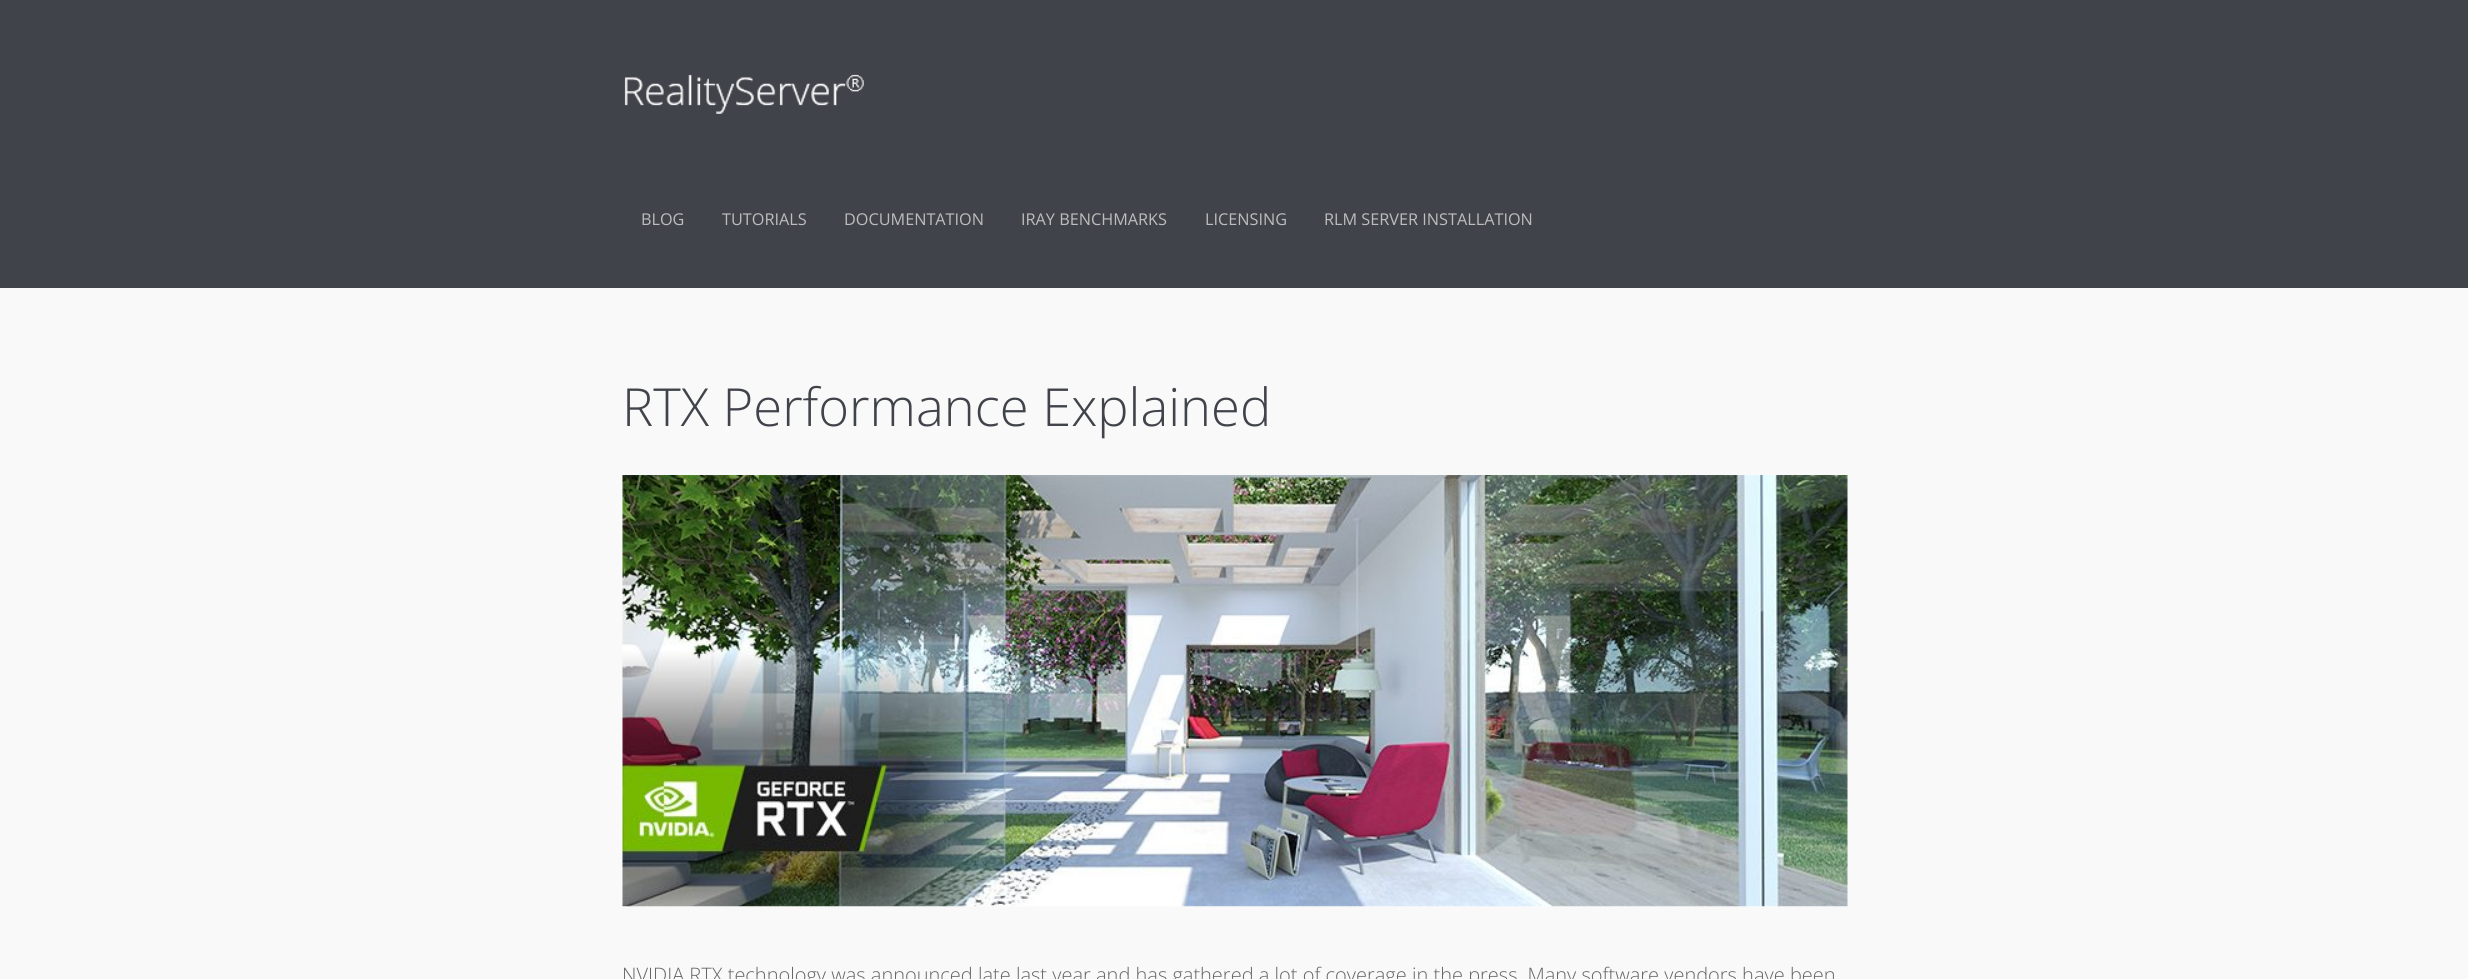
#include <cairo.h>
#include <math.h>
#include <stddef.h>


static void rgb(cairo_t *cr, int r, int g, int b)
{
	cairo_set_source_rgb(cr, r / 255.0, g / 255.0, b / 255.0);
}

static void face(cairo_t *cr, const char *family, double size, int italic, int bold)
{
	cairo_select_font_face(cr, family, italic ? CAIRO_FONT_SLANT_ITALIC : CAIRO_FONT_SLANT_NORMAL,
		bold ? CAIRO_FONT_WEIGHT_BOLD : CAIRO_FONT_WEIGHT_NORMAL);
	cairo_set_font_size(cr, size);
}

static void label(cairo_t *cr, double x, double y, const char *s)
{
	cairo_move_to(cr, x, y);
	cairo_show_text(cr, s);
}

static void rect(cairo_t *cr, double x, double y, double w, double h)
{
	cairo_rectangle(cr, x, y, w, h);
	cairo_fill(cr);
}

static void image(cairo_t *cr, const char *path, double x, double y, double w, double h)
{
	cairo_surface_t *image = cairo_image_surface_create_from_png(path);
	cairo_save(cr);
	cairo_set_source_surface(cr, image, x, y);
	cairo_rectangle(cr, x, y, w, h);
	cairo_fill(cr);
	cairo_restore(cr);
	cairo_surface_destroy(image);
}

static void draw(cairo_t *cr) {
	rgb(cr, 64, 67, 74);
	cairo_paint(cr);
	image(cr, "image0.png", 624, 74, 240, 40);
	face(cr, "Open Sans", 16.25, 0, 0);
	rgb(cr, 189, 189, 189);
	label(cr, 641, 225, "BLOG");
	label(cr, 722, 225, "TUTORIALS");
	label(cr, 844, 225, "DOCUMENTATION");
	label(cr, 1021, 225, "IRAY BENCHMARKS");
	label(cr, 1205, 225, "LICENSING");
	label(cr, 1324, 225, "RLM SERVER INSTALLATION");
	rgb(cr, 249, 249, 249);
	rect(cr, 0, 288, 2468, 691);
	face(cr, "Open Sans Light", 52.5, 0, 0);
	rgb(cr, 64, 67, 74);
	label(cr, 622, 426, "RTX Performance Explained");
	image(cr, "image1.png", 622, 475, 1226, 432);
	face(cr, "Open Sans Light", 20, 0, 0);
	rgb(cr, 101, 101, 101);
	label(cr, 622, 982, "NVIDIA RTX technology was announced late last year and has gathered a lot of coverage in the press. Many software vendors have been");
}

int main(void) {
	cairo_surface_t *surface = cairo_image_surface_create(CAIRO_FORMAT_RGB24, 2468, 979);
	cairo_t *cr = cairo_create(surface);
	cairo_font_options_t *options = cairo_font_options_create();
	cairo_font_options_set_hint_metrics(options, CAIRO_HINT_METRICS_OFF);
	cairo_font_options_set_hint_style(options, CAIRO_HINT_STYLE_NONE);
	cairo_set_font_options(cr, options);
	cairo_set_miter_limit(cr, 4);
	draw(cr);
	cairo_surface_write_to_png(surface, "render.png");
	cairo_font_options_destroy(options);
	cairo_destroy(cr);
	cairo_surface_destroy(surface);
	return 0;
}
